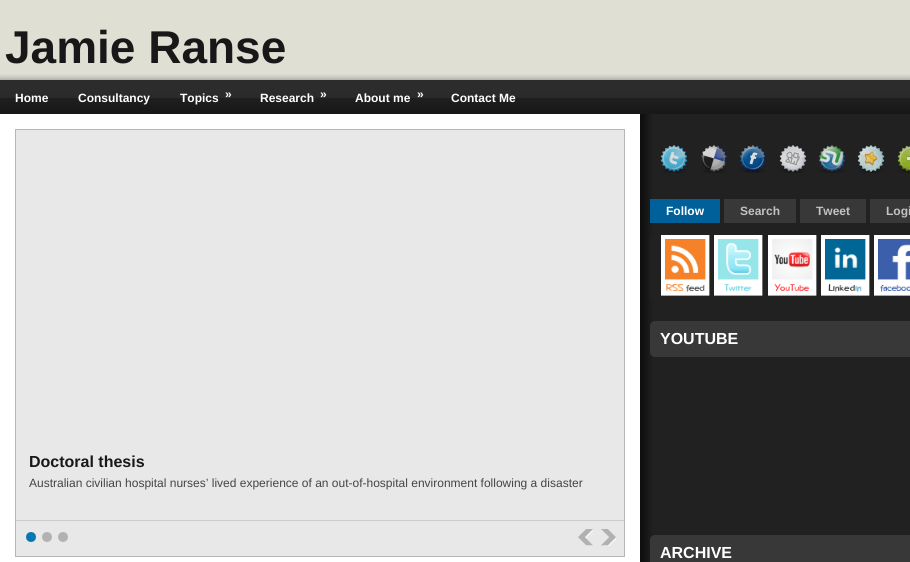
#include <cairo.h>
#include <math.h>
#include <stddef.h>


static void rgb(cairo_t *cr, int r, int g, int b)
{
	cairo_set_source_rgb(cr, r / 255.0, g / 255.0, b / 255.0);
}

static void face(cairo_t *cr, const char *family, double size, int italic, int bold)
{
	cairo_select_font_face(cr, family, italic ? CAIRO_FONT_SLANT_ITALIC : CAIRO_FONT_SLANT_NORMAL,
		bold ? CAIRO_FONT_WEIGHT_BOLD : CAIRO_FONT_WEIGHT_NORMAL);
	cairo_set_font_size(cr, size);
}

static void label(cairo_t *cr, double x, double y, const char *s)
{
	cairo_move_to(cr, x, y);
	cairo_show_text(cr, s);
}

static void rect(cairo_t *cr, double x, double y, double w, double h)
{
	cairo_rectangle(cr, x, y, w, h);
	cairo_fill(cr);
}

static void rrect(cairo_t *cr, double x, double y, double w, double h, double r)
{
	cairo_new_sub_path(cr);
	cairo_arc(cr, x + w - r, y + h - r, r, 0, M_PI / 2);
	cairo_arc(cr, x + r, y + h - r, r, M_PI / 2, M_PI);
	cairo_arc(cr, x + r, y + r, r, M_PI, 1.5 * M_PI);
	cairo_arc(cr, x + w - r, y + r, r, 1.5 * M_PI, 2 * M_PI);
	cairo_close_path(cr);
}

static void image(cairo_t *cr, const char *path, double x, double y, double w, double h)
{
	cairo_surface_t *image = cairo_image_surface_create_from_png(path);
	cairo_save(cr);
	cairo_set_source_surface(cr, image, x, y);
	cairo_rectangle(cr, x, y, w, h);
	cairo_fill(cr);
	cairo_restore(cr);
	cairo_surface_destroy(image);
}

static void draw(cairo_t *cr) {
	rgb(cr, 224, 223, 211);
	cairo_paint(cr);
	image(cr, "image0.png", 0, 74, 910, 6);
	face(cr, "Liberation Sans", 46, 0, 1);
	rgb(cr, 25, 24, 25);
	label(cr, 5, 63, "Jamie Ranse");
	image(cr, "image1.png", 0, 80, 910, 34);
	face(cr, "Liberation Sans", 12, 0, 1);
	rgb(cr, 255, 255, 255);
	label(cr, 15, 102, "Home");
	label(cr, 78, 102, "Consultancy");
	label(cr, 180, 102, "Topics");
	label(cr, 225, 98, "»");
	label(cr, 260, 102, "Research");
	label(cr, 320, 98, "»");
	label(cr, 355, 102, "About me");
	label(cr, 417, 98, "»");
	label(cr, 451, 102, "Contact Me");
	rect(cr, 0, 114, 640, 448);
	image(cr, "image2.png", 640, 114, 270, 448);
	rgb(cr, 232, 232, 232);
	cairo_rectangle(cr, 15.5, 129.5, 609, 427);
	cairo_fill_preserve(cr);
	rgb(cr, 182, 182, 182);
	cairo_set_line_width(cr, 1);
	cairo_stroke(cr);
	face(cr, "Liberation Sans", 16, 0, 1);
	rgb(cr, 25, 24, 25);
	label(cr, 29, 467, "Doctoral thesis");
	face(cr, "Liberation Sans", 12, 0, 0);
	rgb(cr, 68, 68, 68);
	label(cr, 29, 487, "Australian civilian hospital nurses’ lived experience of an out-of-hospital environment following a disaster");
	rgb(cr, 204, 204, 204);
	rect(cr, 16, 520, 608, 1);
	image(cr, "image3.png", 26, 532, 10, 10);
	image(cr, "image4.png", 42, 532, 10, 10);
	image(cr, "image4.png", 58, 532, 10, 10);
	image(cr, "image5.png", 578, 529, 15, 17);
	image(cr, "image6.png", 601, 529, 15, 17);
	image(cr, "image7.png", 660, 145, 28, 28);
	image(cr, "image8.png", 701, 145, 26, 28);
	image(cr, "image9.png", 739, 145, 28, 28);
	image(cr, "image10.png", 779, 145, 28, 28);
	image(cr, "image11.png", 819, 145, 27, 28);
	image(cr, "image12.png", 857, 145, 28, 28);
	image(cr, "image13.png", 897, 145, 13, 28);
	rgb(cr, 0, 97, 154);
	rect(cr, 650, 199, 70, 24);
	face(cr, "Liberation Sans", 12, 0, 1);
	rgb(cr, 255, 255, 255);
	label(cr, 666, 215, "Follow");
	rgb(cr, 56, 56, 56);
	rect(cr, 724, 199, 72, 24);
	rgb(cr, 194, 194, 194);
	label(cr, 740, 215, "Search");
	rgb(cr, 56, 56, 56);
	rect(cr, 800, 199, 66, 24);
	rgb(cr, 194, 194, 194);
	label(cr, 816, 215, "Tweet");
	rgb(cr, 56, 56, 56);
	rect(cr, 870, 199, 40, 24);
	rgb(cr, 194, 194, 194);
	label(cr, 886, 215, "Logi");
	rgb(cr, 33, 33, 33);
	rect(cr, 650, 235, 2, 66);
	image(cr, "image14.png", 661, 235, 49, 61);
	image(cr, "image15.png", 714, 235, 49, 61);
	image(cr, "image16.png", 768, 235, 49, 61);
	image(cr, "image17.png", 821, 235, 49, 61);
	image(cr, "image18.png", 874, 235, 36, 61);
	rgb(cr, 56, 56, 56);
	rrect(cr, 650, 321, 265, 36, 5);
	cairo_fill(cr);
	face(cr, "Liberation Sans", 16, 0, 1);
	rgb(cr, 255, 255, 255);
	label(cr, 660, 344, "YOUTUBE");
	rgb(cr, 56, 56, 56);
	rrect(cr, 650, 535, 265, 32, 5);
	cairo_fill(cr);
	rgb(cr, 255, 255, 255);
	label(cr, 660, 558, "ARCHIVE");
}

int main(void) {
	cairo_surface_t *surface = cairo_image_surface_create(CAIRO_FORMAT_RGB24, 910, 562);
	cairo_t *cr = cairo_create(surface);
	cairo_font_options_t *options = cairo_font_options_create();
	cairo_font_options_set_hint_metrics(options, CAIRO_HINT_METRICS_OFF);
	cairo_font_options_set_hint_style(options, CAIRO_HINT_STYLE_NONE);
	cairo_set_font_options(cr, options);
	cairo_set_miter_limit(cr, 4);
	draw(cr);
	cairo_surface_write_to_png(surface, "render.png");
	cairo_font_options_destroy(options);
	cairo_destroy(cr);
	cairo_surface_destroy(surface);
	return 0;
}
